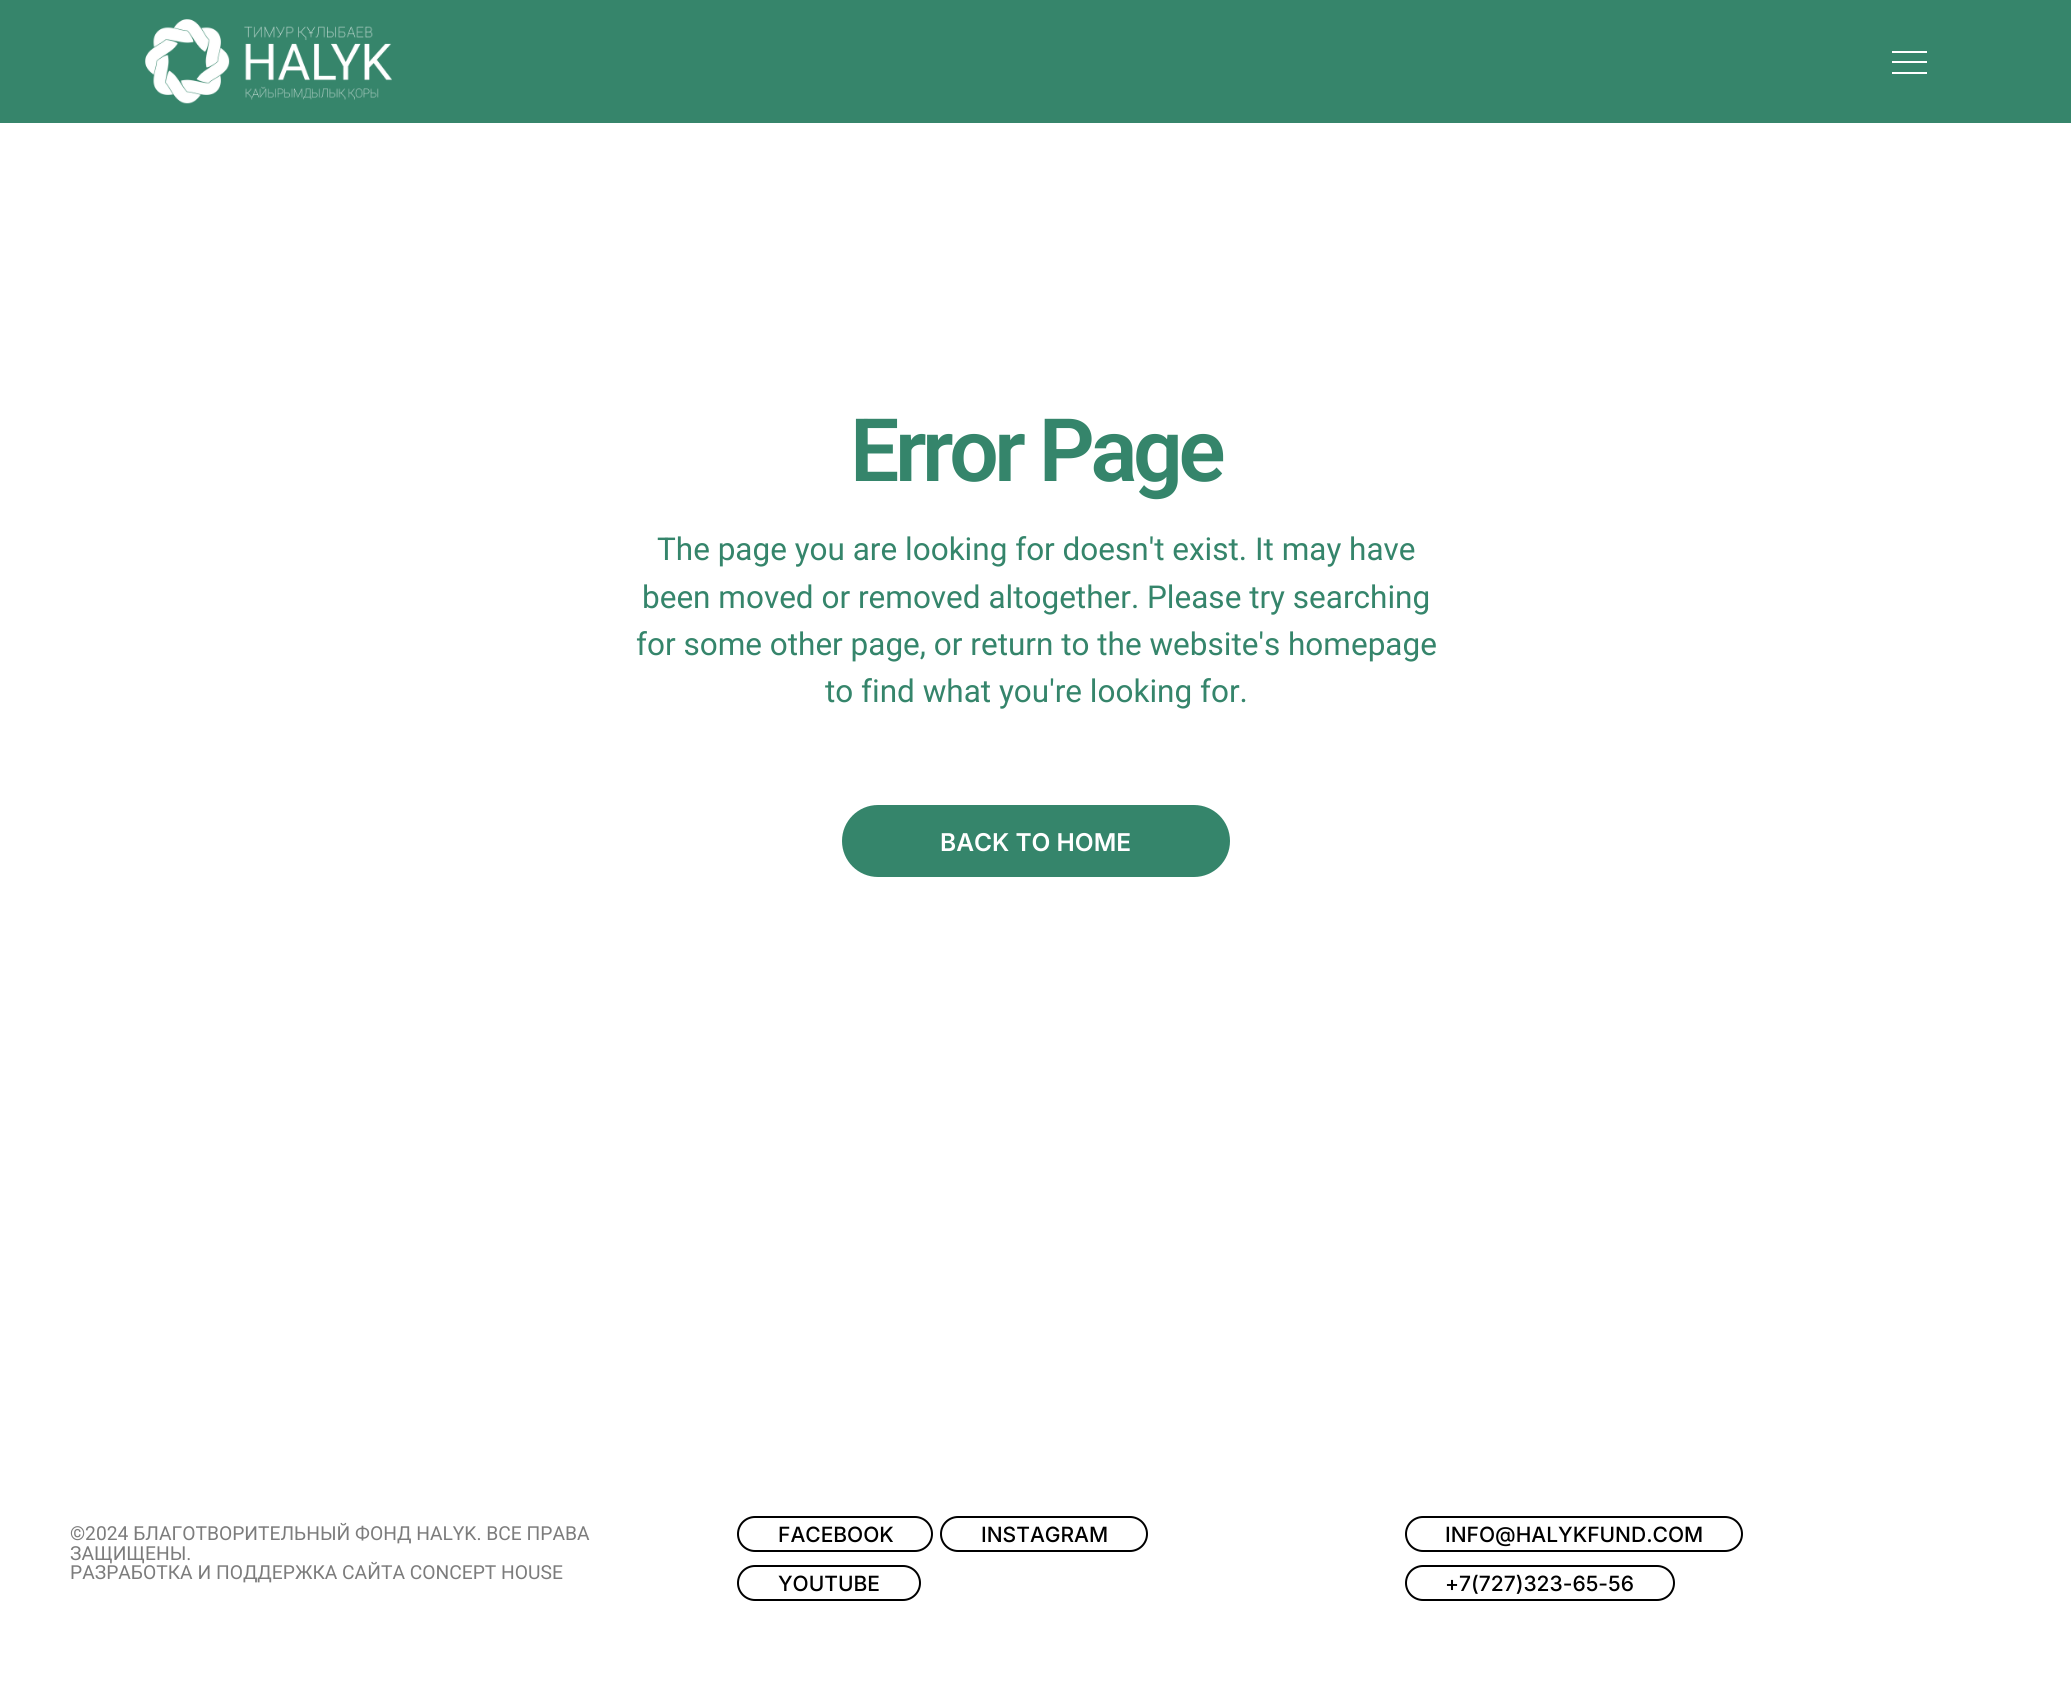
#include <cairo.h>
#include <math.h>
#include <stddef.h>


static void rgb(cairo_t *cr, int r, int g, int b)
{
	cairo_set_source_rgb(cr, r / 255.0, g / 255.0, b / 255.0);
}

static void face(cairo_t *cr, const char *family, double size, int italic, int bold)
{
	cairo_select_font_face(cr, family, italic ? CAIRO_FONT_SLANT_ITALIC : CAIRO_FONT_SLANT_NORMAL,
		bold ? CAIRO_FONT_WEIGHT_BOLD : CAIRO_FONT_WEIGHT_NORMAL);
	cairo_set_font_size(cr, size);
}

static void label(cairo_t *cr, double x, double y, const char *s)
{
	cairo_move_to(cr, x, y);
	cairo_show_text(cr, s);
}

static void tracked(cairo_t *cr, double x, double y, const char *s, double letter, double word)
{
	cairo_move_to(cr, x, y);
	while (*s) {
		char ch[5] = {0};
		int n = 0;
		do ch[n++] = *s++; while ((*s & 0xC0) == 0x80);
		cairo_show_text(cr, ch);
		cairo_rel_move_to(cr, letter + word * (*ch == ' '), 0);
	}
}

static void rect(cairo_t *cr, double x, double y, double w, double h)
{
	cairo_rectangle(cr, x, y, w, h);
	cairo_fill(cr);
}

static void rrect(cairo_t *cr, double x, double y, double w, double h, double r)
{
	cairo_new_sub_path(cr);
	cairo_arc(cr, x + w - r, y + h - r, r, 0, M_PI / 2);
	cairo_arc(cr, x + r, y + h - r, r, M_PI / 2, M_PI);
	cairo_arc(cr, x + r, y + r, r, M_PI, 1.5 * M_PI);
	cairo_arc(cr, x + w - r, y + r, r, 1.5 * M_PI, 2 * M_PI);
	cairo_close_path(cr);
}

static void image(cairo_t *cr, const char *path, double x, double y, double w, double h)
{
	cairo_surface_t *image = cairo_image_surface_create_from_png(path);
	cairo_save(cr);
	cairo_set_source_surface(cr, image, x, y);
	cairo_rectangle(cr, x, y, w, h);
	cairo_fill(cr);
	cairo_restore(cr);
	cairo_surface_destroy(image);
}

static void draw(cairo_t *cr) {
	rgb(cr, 255, 255, 255);
	cairo_paint(cr);
	rgb(cr, 54, 133, 107);
	rect(cr, 0, 0, 2071, 123);
	image(cr, "image0.png", 145, 19, 247, 85);
	rgb(cr, 255, 255, 255);
	rect(cr, 1892, 51, 35, 2);
	rect(cr, 1892, 61, 35, 2);
	rect(cr, 1892, 72, 35, 2);
	face(cr, "Roboto SemiBold", 87.5, 0, 0);
	rgb(cr, 53, 133, 107);
	tracked(cr, 850, 481, "Error Page", -4.4, 0);
	face(cr, "Roboto", 31.5, 0, 0);
	label(cr, 657, 560, "The page you are looking for doesn't exist. It may have");
	label(cr, 642, 608, "been moved or removed altogether. Please try searching");
	label(cr, 636, 655, "for some other page, or return to the website's homepage");
	label(cr, 825, 702, "to find what you're looking for.");
	rrect(cr, 842, 805, 388, 72, 36);
	cairo_fill(cr);
	face(cr, "Inter SemiBold", 24.5, 0, 0);
	rgb(cr, 255, 255, 255);
	label(cr, 940, 851, "BACK TO HOME");
	face(cr, "Roboto", 19.25, 0, 0);
	rgb(cr, 124, 124, 124);
	label(cr, 70, 1540, "©2024 БЛАГОТВОРИТЕЛЬНЫЙ ФОНД HALYK. ВСЕ ПРАВА");
	label(cr, 70, 1560, "ЗАЩИЩЕНЫ.");
	label(cr, 70, 1579, "РАЗРАБОТКА И ПОДДЕРЖКА САЙТА CONCEPT HOUSE");
	rrect(cr, 738, 1517, 194, 34, 17);
	rgb(cr, 0, 0, 0);
	cairo_stroke(cr);
	face(cr, "Inter Medium", 21, 0, 0);
	label(cr, 778, 1542, "FACEBOOK");
	rrect(cr, 941, 1517, 206, 34, 17);
	cairo_stroke(cr);
	label(cr, 981, 1542, "INSTAGRAM");
	rrect(cr, 738, 1566, 182, 34, 17);
	cairo_stroke(cr);
	label(cr, 778, 1591, "YOUTUBE");
	rrect(cr, 1406, 1517, 336, 34, 17);
	cairo_stroke(cr);
	label(cr, 1445, 1542, "INFO@HALYKFUND.COM");
	rrect(cr, 1406, 1566, 268, 34, 17);
	cairo_stroke(cr);
	label(cr, 1445, 1591, "+7(727)323-65-56");
}

int main(void) {
	cairo_surface_t *surface = cairo_image_surface_create(CAIRO_FORMAT_RGB24, 2071, 1706);
	cairo_t *cr = cairo_create(surface);
	cairo_font_options_t *options = cairo_font_options_create();
	cairo_font_options_set_hint_metrics(options, CAIRO_HINT_METRICS_OFF);
	cairo_font_options_set_hint_style(options, CAIRO_HINT_STYLE_NONE);
	cairo_set_font_options(cr, options);
	cairo_set_miter_limit(cr, 4);
	draw(cr);
	cairo_surface_write_to_png(surface, "render.png");
	cairo_font_options_destroy(options);
	cairo_destroy(cr);
	cairo_surface_destroy(surface);
	return 0;
}
